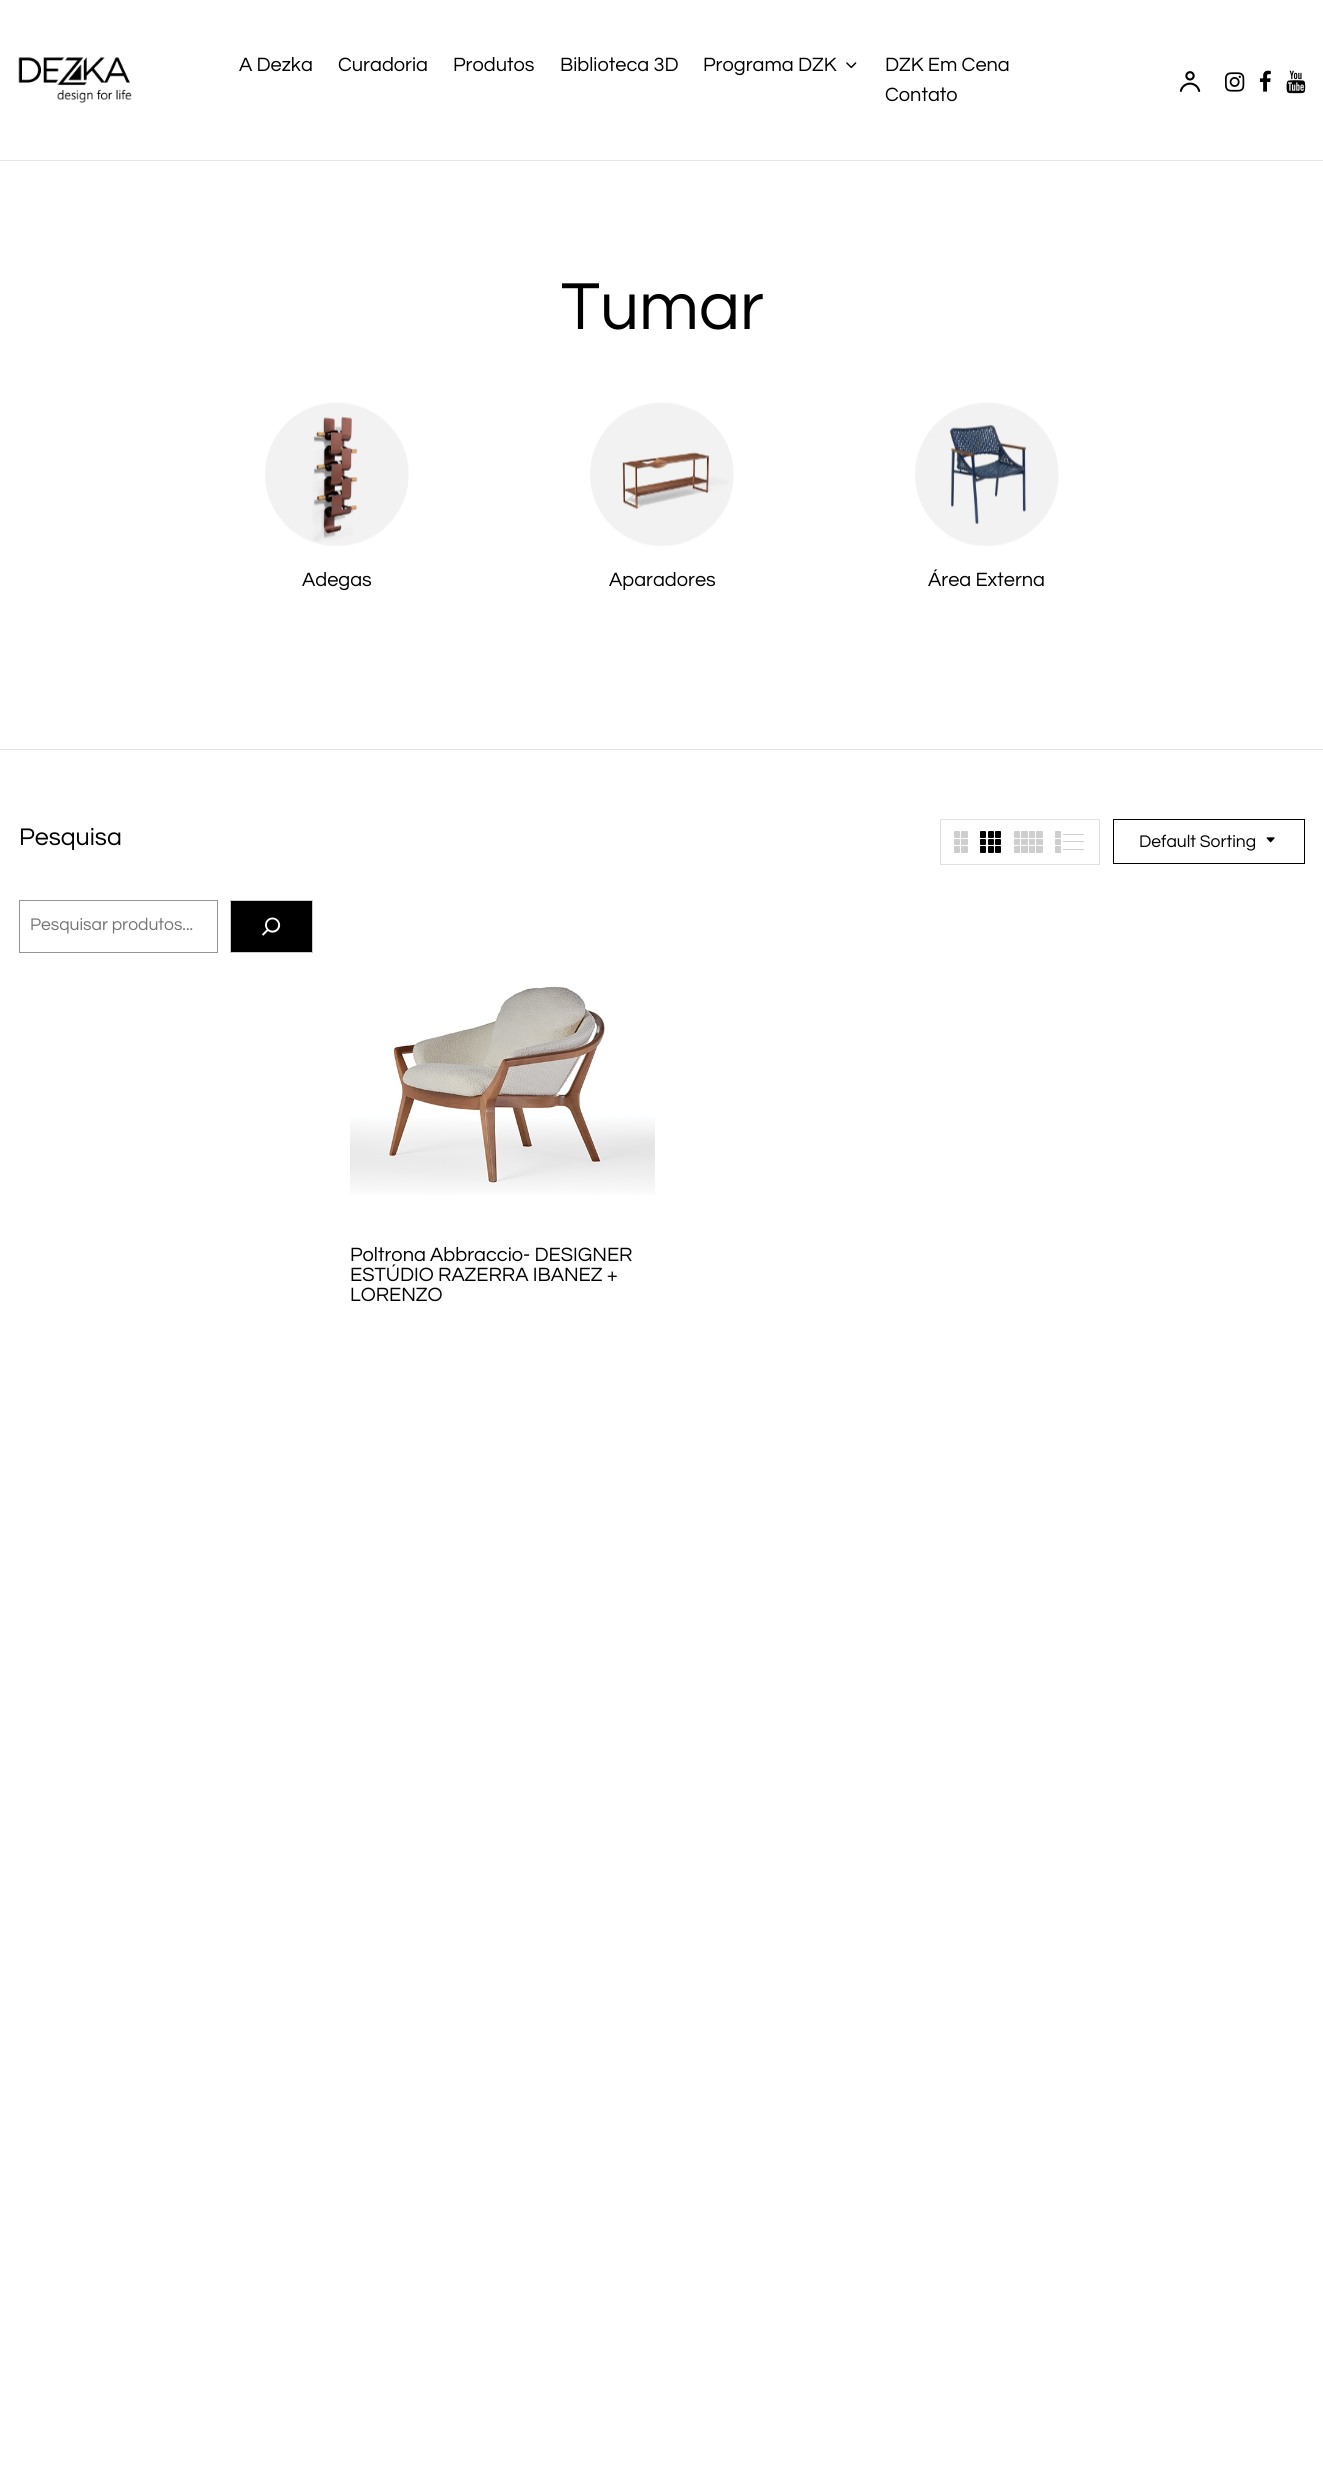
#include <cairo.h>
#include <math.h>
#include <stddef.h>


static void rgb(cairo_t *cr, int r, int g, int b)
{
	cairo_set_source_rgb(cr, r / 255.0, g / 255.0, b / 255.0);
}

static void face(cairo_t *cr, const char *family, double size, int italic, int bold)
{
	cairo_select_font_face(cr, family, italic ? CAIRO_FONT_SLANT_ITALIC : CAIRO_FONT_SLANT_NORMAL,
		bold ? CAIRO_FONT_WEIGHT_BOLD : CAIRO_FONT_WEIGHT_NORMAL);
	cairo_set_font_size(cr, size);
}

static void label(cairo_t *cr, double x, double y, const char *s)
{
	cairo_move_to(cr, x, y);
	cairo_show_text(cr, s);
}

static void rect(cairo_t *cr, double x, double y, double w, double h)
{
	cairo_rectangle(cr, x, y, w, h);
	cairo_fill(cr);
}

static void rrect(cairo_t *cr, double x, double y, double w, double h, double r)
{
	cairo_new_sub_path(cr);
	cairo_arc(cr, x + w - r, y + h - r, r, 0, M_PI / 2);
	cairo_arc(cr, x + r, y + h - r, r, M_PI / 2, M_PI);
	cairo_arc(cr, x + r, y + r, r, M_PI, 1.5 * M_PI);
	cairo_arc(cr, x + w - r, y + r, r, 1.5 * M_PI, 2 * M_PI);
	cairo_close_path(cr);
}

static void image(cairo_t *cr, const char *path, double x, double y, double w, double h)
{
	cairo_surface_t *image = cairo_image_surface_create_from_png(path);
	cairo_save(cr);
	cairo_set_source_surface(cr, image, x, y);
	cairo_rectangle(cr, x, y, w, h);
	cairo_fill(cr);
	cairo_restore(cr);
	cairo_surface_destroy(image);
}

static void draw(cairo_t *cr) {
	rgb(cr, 255, 255, 255);
	cairo_paint(cr);
	rgb(cr, 229, 229, 229);
	rect(cr, 0, 160, 1323, 1);
	image(cr, "image0.png", 18, 57, 114, 46);
	face(cr, "Questrial", 20, 0, 0);
	rgb(cr, 0, 0, 0);
	label(cr, 239, 71, "A Dezka");
	label(cr, 338, 71, "Curadoria");
	label(cr, 453, 71, "Produtos");
	label(cr, 560, 71, "Biblioteca 3D");
	label(cr, 703, 71, "Programa DZK");
	image(cr, "image1.png", 846, 62, 11, 7);
	label(cr, 885, 71, "DZK Em Cena");
	label(cr, 885, 101, "Contato");
	image(cr, "image2.png", 1179, 71, 22, 21);
	image(cr, "image3.png", 1225, 72, 20, 20);
	image(cr, "image4.png", 1259, 70, 12, 22);
	image(cr, "image5.png", 1286, 70, 20, 24);
	rgb(cr, 229, 229, 229);
	rect(cr, 0, 749, 1323, 1);
	face(cr, "Questrial", 69, 0, 0);
	rgb(cr, 0, 0, 0);
	label(cr, 561, 329, "Tumar");
	image(cr, "image6.png", 265, 402, 144, 145);
	face(cr, "Questrial", 20, 0, 0);
	label(cr, 302, 586, "Adegas");
	image(cr, "image7.png", 590, 402, 144, 145);
	label(cr, 609, 586, "Aparadores");
	image(cr, "image8.png", 915, 402, 144, 145);
	label(cr, 928, 586, "Área Externa");
	face(cr, "Questrial", 25, 0, 0);
	label(cr, 19, 845, "Pesquisa");
	cairo_rectangle(cr, 19.5, 900.5, 198, 52);
	rgb(cr, 148, 148, 148);
	cairo_set_line_width(cr, 1);
	cairo_stroke(cr);
	face(cr, "Questrial", 17.5, 0, 0);
	rgb(cr, 117, 117, 117);
	label(cr, 30, 930, "Pesquisar produtos...");
	rgb(cr, 0, 0, 0);
	cairo_rectangle(cr, 230.5, 900.5, 82, 52);
	cairo_fill_preserve(cr);
	rgb(cr, 204, 204, 204);
	cairo_stroke(cr);
	image(cr, "image9.png", 262, 917, 19, 19);
	cairo_rectangle(cr, 940.5, 819.5, 159, 45);
	rgb(cr, 225, 225, 225);
	cairo_stroke(cr);
	rgb(cr, 206, 206, 206);
	rrect(cr, 954, 831, 6, 7, 1);
	cairo_fill(cr);
	rrect(cr, 961, 831, 7, 7, 1);
	cairo_fill(cr);
	rrect(cr, 954, 839, 6, 6, 1);
	cairo_fill(cr);
	rrect(cr, 961, 839, 7, 6, 1);
	cairo_fill(cr);
	rrect(cr, 954, 846, 6, 7, 1);
	cairo_fill(cr);
	rrect(cr, 961, 846, 7, 7, 1);
	cairo_fill(cr);
	rgb(cr, 0, 0, 0);
	rrect(cr, 980, 831, 6, 7, 1);
	cairo_fill(cr);
	rrect(cr, 988, 831, 6, 7, 1);
	cairo_fill(cr);
	rrect(cr, 995, 831, 6, 7, 1);
	cairo_fill(cr);
	rrect(cr, 980, 839, 6, 6, 1);
	cairo_fill(cr);
	rrect(cr, 988, 839, 6, 6, 1);
	cairo_fill(cr);
	rrect(cr, 995, 839, 6, 6, 1);
	cairo_fill(cr);
	rrect(cr, 980, 846, 6, 7, 1);
	cairo_fill(cr);
	rrect(cr, 988, 846, 6, 7, 1);
	cairo_fill(cr);
	rrect(cr, 995, 846, 6, 7, 1);
	cairo_fill(cr);
	rgb(cr, 206, 206, 206);
	rrect(cr, 1014, 831, 6, 7, 1);
	cairo_fill(cr);
	rrect(cr, 1021, 831, 7, 7, 1);
	cairo_fill(cr);
	rrect(cr, 1029, 831, 6, 7, 1);
	cairo_fill(cr);
	rrect(cr, 1036, 831, 7, 7, 1);
	cairo_fill(cr);
	rrect(cr, 1014, 839, 6, 6, 1);
	cairo_fill(cr);
	rrect(cr, 1021, 839, 7, 6, 1);
	cairo_fill(cr);
	rrect(cr, 1029, 839, 6, 6, 1);
	cairo_fill(cr);
	rrect(cr, 1036, 839, 7, 6, 1);
	cairo_fill(cr);
	rrect(cr, 1014, 846, 6, 7, 1);
	cairo_fill(cr);
	rrect(cr, 1021, 846, 7, 7, 1);
	cairo_fill(cr);
	rrect(cr, 1029, 846, 6, 7, 1);
	cairo_fill(cr);
	rrect(cr, 1036, 846, 7, 7, 1);
	cairo_fill(cr);
	rrect(cr, 1055, 831, 6, 7, 1);
	cairo_fill(cr);
	rrect(cr, 1063, 834, 21, 1, 0.5);
	cairo_fill(cr);
	rrect(cr, 1055, 839, 6, 6, 1);
	cairo_fill(cr);
	rrect(cr, 1063, 841, 21, 1, 0.5);
	cairo_fill(cr);
	rrect(cr, 1055, 846, 6, 7, 1);
	cairo_fill(cr);
	rrect(cr, 1063, 849, 21, 1, 0.5);
	cairo_fill(cr);
	cairo_rectangle(cr, 1113.5, 819.5, 191, 44);
	rgb(cr, 0, 0, 0);
	cairo_stroke(cr);
	label(cr, 1139, 847, "Default Sorting");
	image(cr, "image10.png", 1266, 837, 9, 6);
	image(cr, "image11.png", 350, 986, 305, 209);
	face(cr, "Questrial", 20, 0, 0);
	label(cr, 350, 1261, "Poltrona Abbraccio- DESIGNER");
	label(cr, 350, 1281, "ESTÚDIO RAZERRA IBANEZ +");
	label(cr, 350, 1301, "LORENZO");
}

int main(void) {
	cairo_surface_t *surface = cairo_image_surface_create(CAIRO_FORMAT_RGB24, 1323, 2465);
	cairo_t *cr = cairo_create(surface);
	cairo_font_options_t *options = cairo_font_options_create();
	cairo_font_options_set_hint_metrics(options, CAIRO_HINT_METRICS_OFF);
	cairo_font_options_set_hint_style(options, CAIRO_HINT_STYLE_NONE);
	cairo_set_font_options(cr, options);
	cairo_set_miter_limit(cr, 4);
	draw(cr);
	cairo_surface_write_to_png(surface, "render.png");
	cairo_font_options_destroy(options);
	cairo_destroy(cr);
	cairo_surface_destroy(surface);
	return 0;
}
